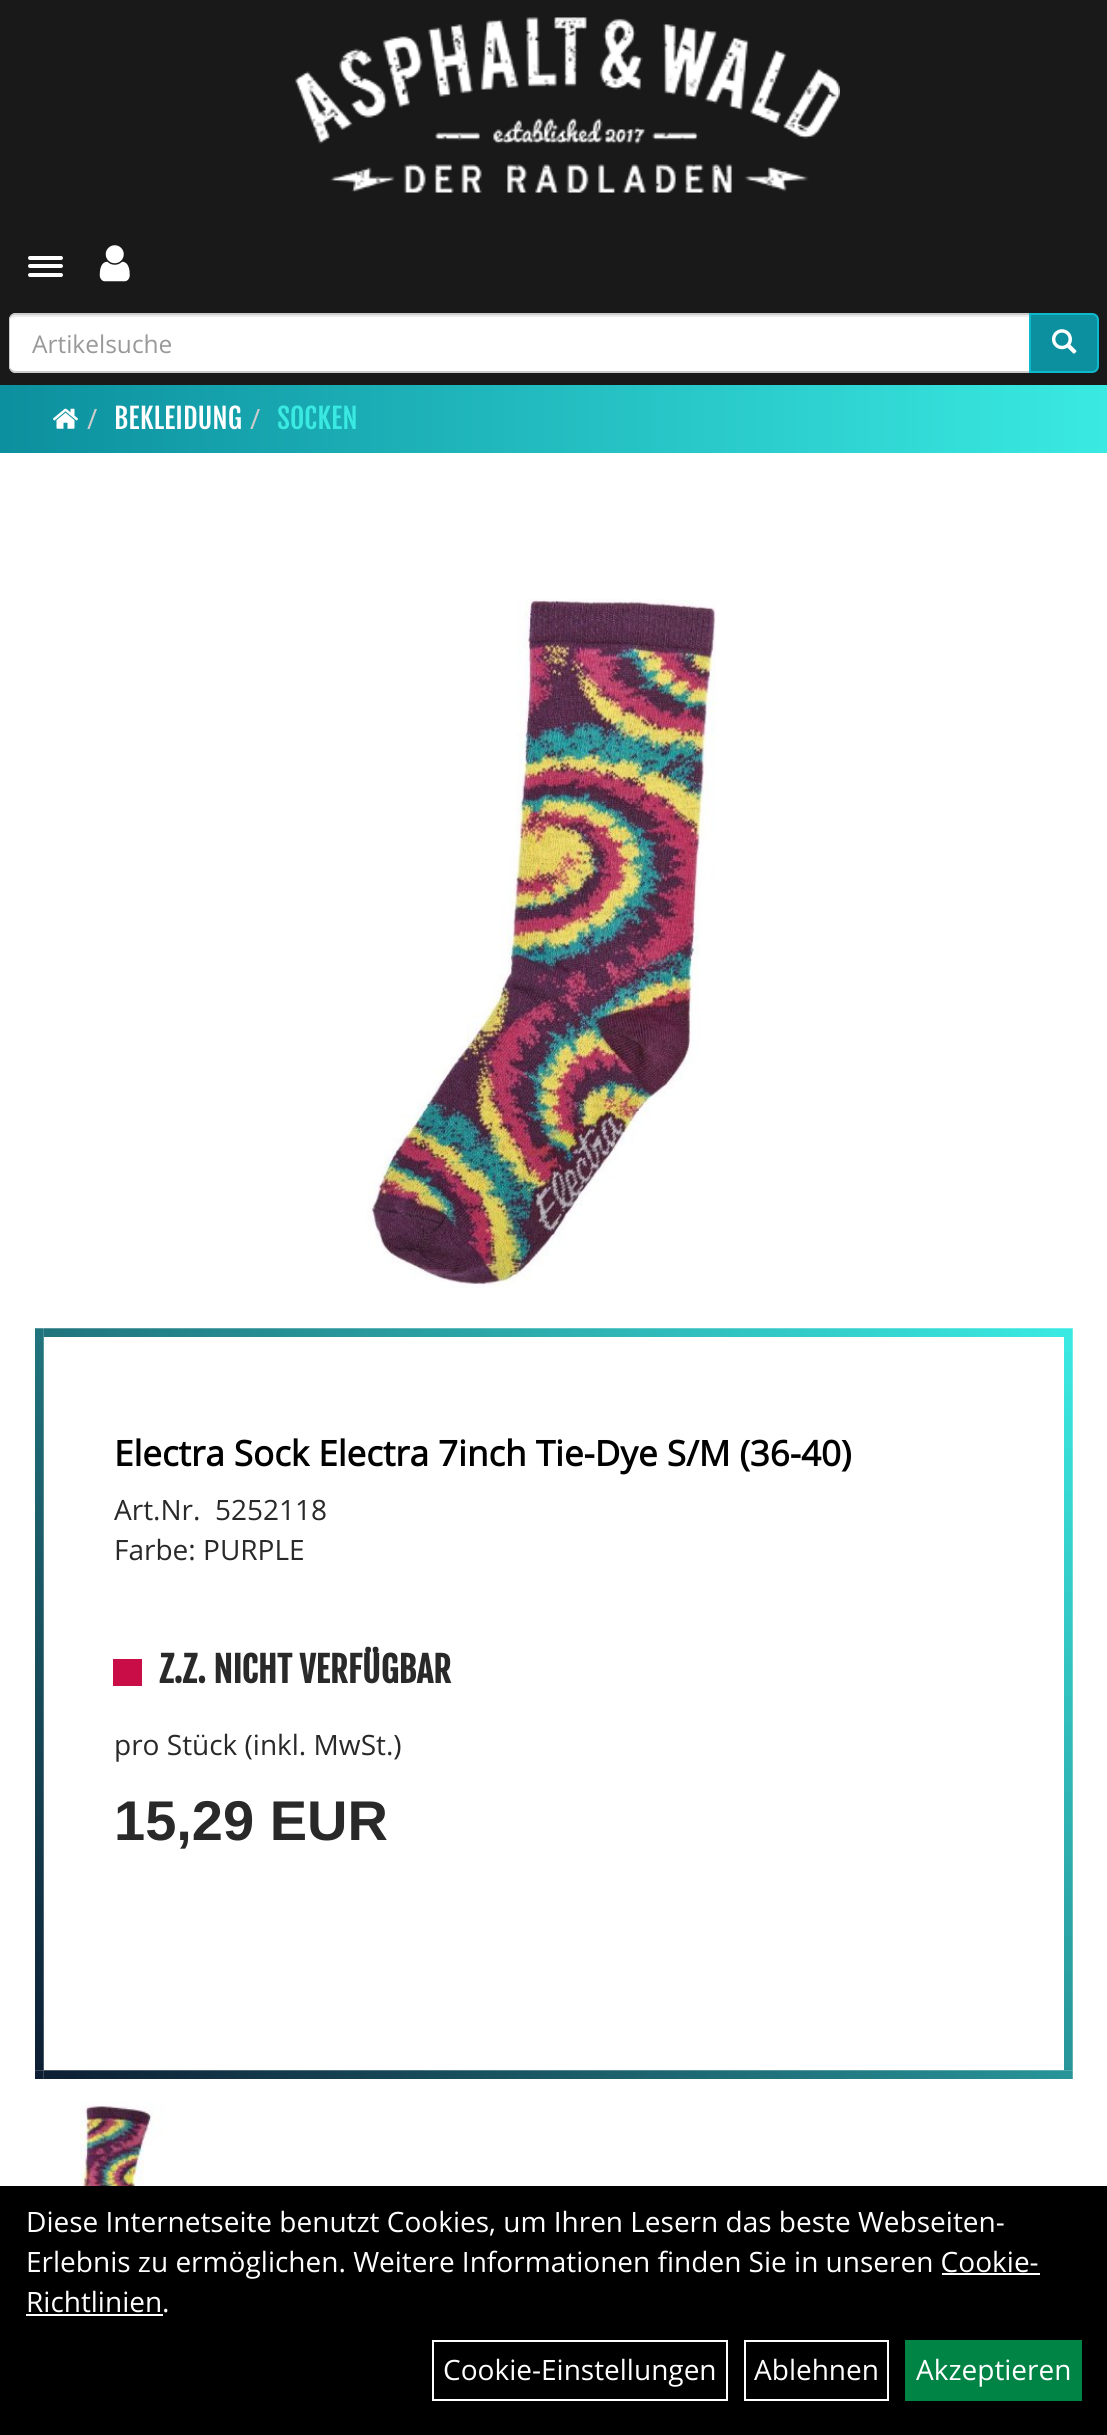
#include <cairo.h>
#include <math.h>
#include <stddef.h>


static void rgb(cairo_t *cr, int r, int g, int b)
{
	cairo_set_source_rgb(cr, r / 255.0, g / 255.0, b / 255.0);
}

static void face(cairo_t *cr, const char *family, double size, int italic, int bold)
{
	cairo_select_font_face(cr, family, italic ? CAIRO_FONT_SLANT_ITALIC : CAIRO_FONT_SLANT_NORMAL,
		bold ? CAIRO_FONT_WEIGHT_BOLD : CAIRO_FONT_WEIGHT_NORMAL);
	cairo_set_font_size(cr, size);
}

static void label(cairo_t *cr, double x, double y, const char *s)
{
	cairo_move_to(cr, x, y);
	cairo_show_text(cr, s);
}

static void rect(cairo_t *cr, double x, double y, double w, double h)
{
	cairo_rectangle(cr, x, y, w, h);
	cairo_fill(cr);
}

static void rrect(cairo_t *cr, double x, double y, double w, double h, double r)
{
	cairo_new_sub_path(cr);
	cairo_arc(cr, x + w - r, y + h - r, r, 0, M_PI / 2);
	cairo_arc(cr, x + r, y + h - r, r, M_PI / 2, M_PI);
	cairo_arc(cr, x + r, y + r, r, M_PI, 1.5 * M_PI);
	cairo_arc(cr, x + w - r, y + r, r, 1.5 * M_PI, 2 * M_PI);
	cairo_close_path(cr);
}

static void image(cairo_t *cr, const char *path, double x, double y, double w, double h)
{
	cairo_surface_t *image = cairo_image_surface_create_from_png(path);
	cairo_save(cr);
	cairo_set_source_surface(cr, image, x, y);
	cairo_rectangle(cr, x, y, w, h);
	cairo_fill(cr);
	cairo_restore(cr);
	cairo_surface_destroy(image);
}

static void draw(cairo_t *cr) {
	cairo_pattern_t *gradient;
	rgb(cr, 255, 255, 255);
	cairo_paint(cr);
	rgb(cr, 26, 25, 25);
	rect(cr, 0, 0, 1107, 385);
	image(cr, "image0.png", 295, 17, 545, 176);
	rgb(cr, 255, 255, 255);
	rrect(cr, 28, 256, 35, 4, 2);
	cairo_fill(cr);
	rrect(cr, 28, 264, 35, 4, 2);
	cairo_fill(cr);
	rrect(cr, 28, 273, 35, 4, 2);
	cairo_fill(cr);
	image(cr, "image1.png", 99, 245, 31, 37);
	cairo_new_path(cr);
	cairo_move_to(cr, 16, 313);
	cairo_line_to(cr, 1029, 313);
	cairo_line_to(cr, 1029, 373);
	cairo_line_to(cr, 16, 373);
	cairo_curve_to(cr, 12, 373, 9, 370, 9, 366);
	cairo_line_to(cr, 9, 320);
	cairo_curve_to(cr, 9, 316, 12, 313, 16, 313);
	cairo_close_path(cr);
	cairo_fill(cr);
	rgb(cr, 236, 236, 236);
	cairo_new_path(cr);
	cairo_move_to(cr, 16, 317);
	cairo_line_to(cr, 1029, 317);
	cairo_line_to(cr, 1029, 315);
	cairo_line_to(cr, 16, 315);
	cairo_curve_to(cr, 14, 315, 11, 317, 11, 319);
	cairo_curve_to(cr, 12, 318, 14, 317, 16, 317);
	cairo_close_path(cr);
	cairo_fill(cr);
	rgb(cr, 204, 204, 204);
	cairo_set_fill_rule(cr, CAIRO_FILL_RULE_EVEN_ODD);
	cairo_new_path(cr);
	cairo_move_to(cr, 16, 313);
	cairo_line_to(cr, 1029, 313);
	cairo_line_to(cr, 1029, 373);
	cairo_line_to(cr, 16, 373);
	cairo_curve_to(cr, 12, 373, 9, 370, 9, 366);
	cairo_line_to(cr, 9, 320);
	cairo_curve_to(cr, 9, 316, 12, 313, 16, 313);
	cairo_close_path(cr);
	cairo_move_to(cr, 16, 315);
	cairo_line_to(cr, 1029, 315);
	cairo_line_to(cr, 1029, 371);
	cairo_line_to(cr, 16, 371);
	cairo_curve_to(cr, 13, 371, 10, 369, 10, 366);
	cairo_line_to(cr, 10, 320);
	cairo_curve_to(cr, 10, 317, 13, 315, 16, 315);
	cairo_close_path(cr);
	cairo_fill(cr);
	face(cr, "Open Sans", 24.5, 0, 0);
	rgb(cr, 153, 153, 153);
	label(cr, 32, 353, "Artikelsuche");
	rgb(cr, 12, 143, 158);
	cairo_new_path(cr);
	cairo_move_to(cr, 1030, 314);
	cairo_line_to(cr, 1092, 314);
	cairo_curve_to(cr, 1095.5, 314, 1098, 316.5, 1098, 320);
	cairo_line_to(cr, 1098, 366);
	cairo_curve_to(cr, 1098, 369.5, 1095.5, 372, 1092, 372);
	cairo_line_to(cr, 1030, 372);
	cairo_close_path(cr);
	cairo_fill_preserve(cr);
	rgb(cr, 16, 186, 205);
	cairo_stroke(cr);
	image(cr, "image2.png", 1051, 329, 26, 25);
	gradient = cairo_pattern_create_linear(0, 419, 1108, 419);
	cairo_pattern_add_color_stop_rgba(gradient, 0, 0.047, 0.561, 0.62, 1);
	cairo_pattern_add_color_stop_rgba(gradient, 1, 0.227, 0.918, 0.886, 1);
	cairo_set_source(cr, gradient);
	cairo_pattern_destroy(gradient);
	rect(cr, 0, 385, 1107, 68);
	image(cr, "image3.png", 53, 408, 25, 21);
	face(cr, "Open Sans", 28, 0, 0);
	rgb(cr, 204, 204, 204);
	label(cr, 87, 429, "/");
	face(cr, "Fjalla One", 28, 0, 0);
	rgb(cr, 255, 255, 255);
	label(cr, 114, 429, "BEKLEIDUNG");
	face(cr, "Open Sans", 28, 0, 0);
	rgb(cr, 204, 204, 204);
	label(cr, 250, 429, "/");
	face(cr, "Fjalla One", 28, 0, 0);
	rgb(cr, 58, 234, 226);
	label(cr, 277, 429, "SOCKEN");
	image(cr, "image4.png", 367, 599, 349, 690);
	image(cr, "image5.png", 35, 1328, 1038, 751);
	face(cr, "Open Sans", 35, 0, 1);
	rgb(cr, 0, 0, 0);
	label(cr, 114, 1466, "Electra Sock Electra 7inch Tie-Dye S/M (36-40)");
	face(cr, "Open Sans", 28, 0, 0);
	rgb(cr, 41, 41, 41);
	label(cr, 114, 1520, "Art.Nr.  5252118");
	label(cr, 114, 1560, "Farbe: PURPLE");
	rgb(cr, 200, 13, 71);
	rect(cr, 113, 1659, 29, 27);
	face(cr, "Fjalla One", 35, 0, 1);
	rgb(cr, 41, 41, 41);
	label(cr, 159, 1683, "Z.Z. NICHT VERFÜGBAR");
	face(cr, "Open Sans", 28, 0, 0);
	label(cr, 114, 1755, "pro Stück (inkl. MwSt.)");
	face(cr, "Liberation Sans", 56, 0, 1);
	label(cr, 114, 1840, "15,29 EUR");
	image(cr, "image6.png", 60, 2101, 168, 85);
	rgb(cr, 0, 0, 0);
	rect(cr, 0, 2186, 1107, 249);
	face(cr, "Open Sans", 28, 0, 0);
	rgb(cr, 255, 255, 255);
	label(cr, 26, 2232, "Diese Internetseite benutzt Cookies, um Ihren Lesern das beste Webseiten-");
	label(cr, 26, 2272, "Erlebnis zu ermöglichen. Weitere Informationen finden Sie in unseren Cookie-");
	label(cr, 26, 2312, "Richtlinien.");
	rect(cr, 942, 2273, 98, 2);
	rect(cr, 26, 2314, 137, 2);
	cairo_rectangle(cr, 433, 2341, 294, 59);
	cairo_stroke(cr);
	label(cr, 443, 2380, "Cookie-Einstellungen");
	cairo_rectangle(cr, 745, 2341, 143, 59);
	cairo_stroke(cr);
	label(cr, 754, 2380, "Ablehnen");
	rgb(cr, 0, 132, 70);
	rect(cr, 905, 2340, 177, 61);
	rgb(cr, 255, 255, 255);
	label(cr, 916, 2380, "Akzeptieren");
}

int main(void) {
	cairo_surface_t *surface = cairo_image_surface_create(CAIRO_FORMAT_RGB24, 1107, 2435);
	cairo_t *cr = cairo_create(surface);
	cairo_font_options_t *options = cairo_font_options_create();
	cairo_font_options_set_hint_metrics(options, CAIRO_HINT_METRICS_OFF);
	cairo_font_options_set_hint_style(options, CAIRO_HINT_STYLE_NONE);
	cairo_set_font_options(cr, options);
	cairo_set_miter_limit(cr, 4);
	draw(cr);
	cairo_surface_write_to_png(surface, "render.png");
	cairo_font_options_destroy(options);
	cairo_destroy(cr);
	cairo_surface_destroy(surface);
	return 0;
}
